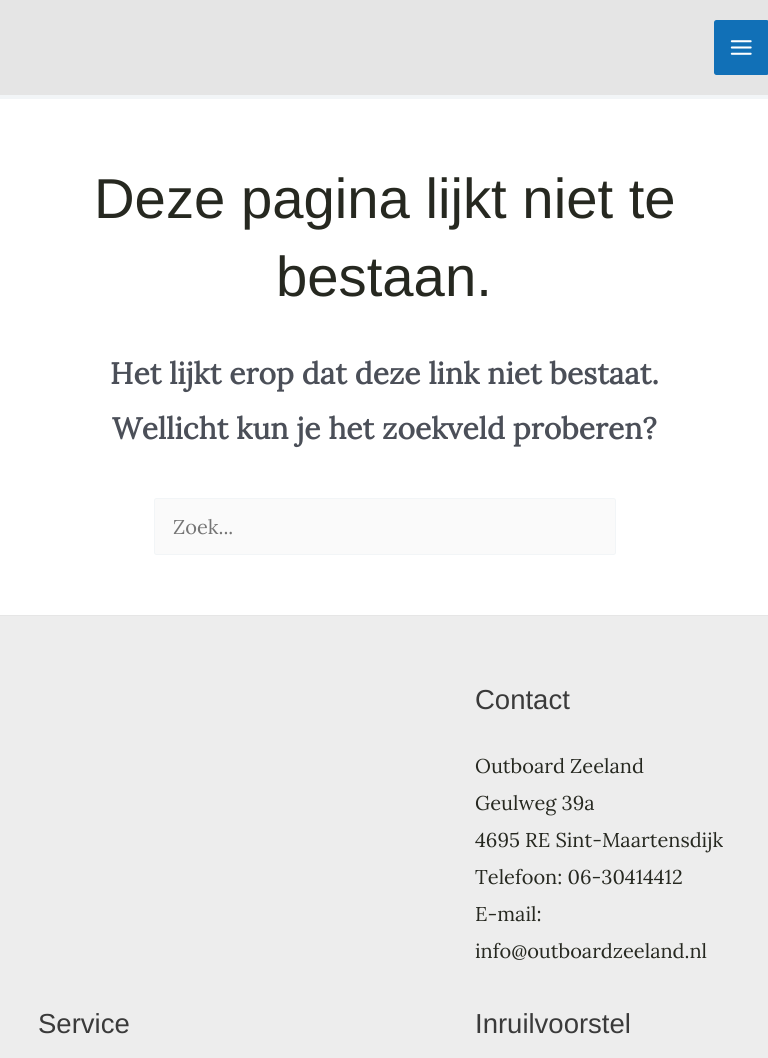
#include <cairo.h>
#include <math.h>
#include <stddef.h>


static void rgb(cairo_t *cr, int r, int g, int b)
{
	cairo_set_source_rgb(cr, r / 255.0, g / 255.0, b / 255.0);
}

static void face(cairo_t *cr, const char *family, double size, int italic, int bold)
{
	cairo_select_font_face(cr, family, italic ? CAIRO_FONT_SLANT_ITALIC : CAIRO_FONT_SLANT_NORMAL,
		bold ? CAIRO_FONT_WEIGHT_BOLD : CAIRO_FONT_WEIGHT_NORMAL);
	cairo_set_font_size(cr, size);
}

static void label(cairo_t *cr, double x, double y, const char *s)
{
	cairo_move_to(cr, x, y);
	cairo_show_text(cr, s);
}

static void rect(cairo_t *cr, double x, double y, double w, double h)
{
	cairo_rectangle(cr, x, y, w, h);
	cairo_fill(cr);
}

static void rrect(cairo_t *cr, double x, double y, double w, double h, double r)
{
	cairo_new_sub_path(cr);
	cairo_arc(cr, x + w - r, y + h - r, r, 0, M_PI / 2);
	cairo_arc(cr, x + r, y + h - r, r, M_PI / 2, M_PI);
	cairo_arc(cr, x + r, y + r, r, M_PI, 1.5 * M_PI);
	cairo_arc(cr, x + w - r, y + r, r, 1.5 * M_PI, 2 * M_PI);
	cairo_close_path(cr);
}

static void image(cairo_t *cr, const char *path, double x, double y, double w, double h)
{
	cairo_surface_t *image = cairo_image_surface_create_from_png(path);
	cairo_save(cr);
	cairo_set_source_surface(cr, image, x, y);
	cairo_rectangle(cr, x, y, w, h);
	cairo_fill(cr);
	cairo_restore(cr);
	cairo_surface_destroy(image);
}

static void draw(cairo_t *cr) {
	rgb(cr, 255, 255, 255);
	cairo_paint(cr);
	rgb(cr, 229, 229, 229);
	rect(cr, 0, 0, 768, 95);
	rgb(cr, 242, 245, 247);
	rect(cr, 0, 95, 768, 4);
	rgb(cr, 17, 112, 183);
	rrect(cr, 714, 20, 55, 55, 2.5);
	cairo_fill(cr);
	image(cr, "image0.png", 730, 40, 22, 15);
	face(cr, "Liberation Sans", 56.25, 0, 0);
	rgb(cr, 38, 40, 32);
	label(cr, 94, 218, "Deze pagina lijkt niet te");
	label(cr, 276, 296, "bestaan.");
	face(cr, "Lora", 30, 0, 1);
	rgb(cr, 75, 79, 88);
	label(cr, 110, 384, "Het lijkt erop dat deze link niet bestaat.");
	label(cr, 112, 439, "Wellicht kun je het zoekveld proberen?");
	rgb(cr, 250, 250, 250);
	rrect(cr, 154.5, 498.5, 461, 56, 2);
	cairo_fill_preserve(cr);
	rgb(cr, 242, 245, 247);
	cairo_set_line_width(cr, 1);
	cairo_stroke(cr);
	face(cr, "Lora", 20, 0, 0);
	rgb(cr, 117, 117, 117);
	label(cr, 173, 534, "Zoek...");
	rgb(cr, 237, 237, 237);
	rect(cr, 0, 616, 768, 442);
	rgb(cr, 230, 230, 230);
	rect(cr, 0, 615, 768, 1);
	face(cr, "Liberation Sans", 27.5, 0, 0);
	rgb(cr, 58, 58, 58);
	label(cr, 475, 709, "Contact");
	face(cr, "Lora", 20, 0, 0);
	rgb(cr, 38, 40, 32);
	label(cr, 475, 773, "Outboard Zeeland");
	label(cr, 475, 810, "Geulweg 39a");
	label(cr, 475, 847, "4695 RE Sint-Maartensdijk");
	label(cr, 475, 884, "Telefoon: 06-30414412");
	label(cr, 475, 921, "E-mail:");
	label(cr, 475, 958, "info@outboardzeeland.nl");
	face(cr, "Liberation Sans", 27.5, 0, 0);
	rgb(cr, 58, 58, 58);
	label(cr, 38, 1033, "Service");
	label(cr, 475, 1033, "Inruilvoorstel");
}

int main(void) {
	cairo_surface_t *surface = cairo_image_surface_create(CAIRO_FORMAT_RGB24, 768, 1058);
	cairo_t *cr = cairo_create(surface);
	cairo_font_options_t *options = cairo_font_options_create();
	cairo_font_options_set_hint_metrics(options, CAIRO_HINT_METRICS_OFF);
	cairo_font_options_set_hint_style(options, CAIRO_HINT_STYLE_NONE);
	cairo_set_font_options(cr, options);
	cairo_set_miter_limit(cr, 4);
	draw(cr);
	cairo_surface_write_to_png(surface, "render.png");
	cairo_font_options_destroy(options);
	cairo_destroy(cr);
	cairo_surface_destroy(surface);
	return 0;
}
